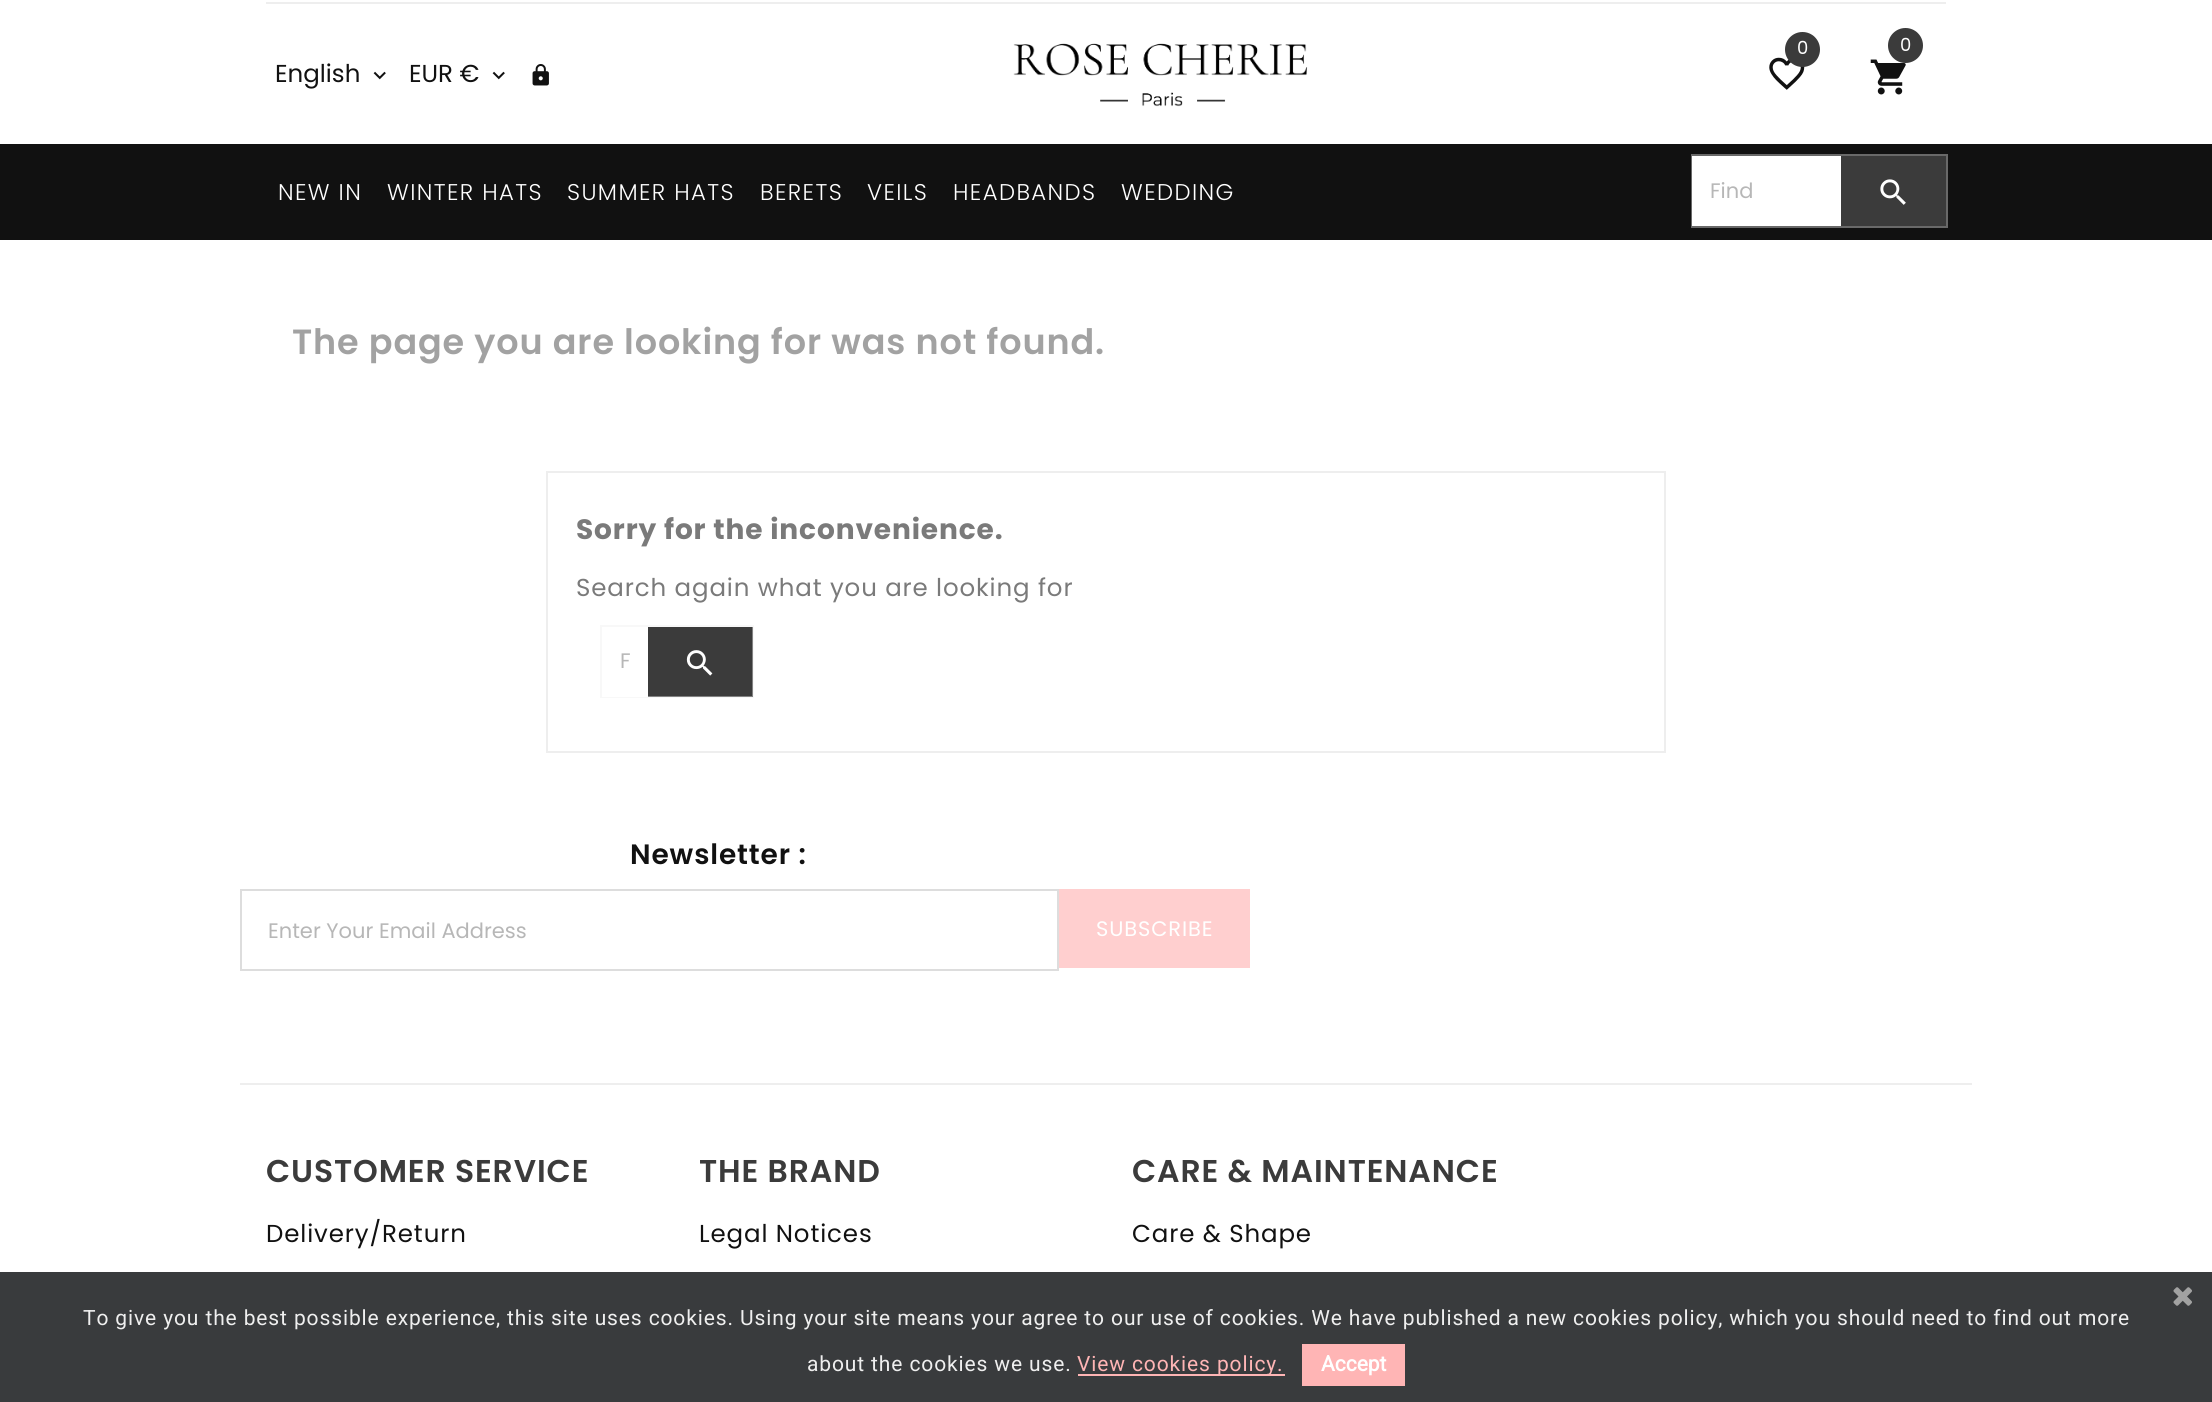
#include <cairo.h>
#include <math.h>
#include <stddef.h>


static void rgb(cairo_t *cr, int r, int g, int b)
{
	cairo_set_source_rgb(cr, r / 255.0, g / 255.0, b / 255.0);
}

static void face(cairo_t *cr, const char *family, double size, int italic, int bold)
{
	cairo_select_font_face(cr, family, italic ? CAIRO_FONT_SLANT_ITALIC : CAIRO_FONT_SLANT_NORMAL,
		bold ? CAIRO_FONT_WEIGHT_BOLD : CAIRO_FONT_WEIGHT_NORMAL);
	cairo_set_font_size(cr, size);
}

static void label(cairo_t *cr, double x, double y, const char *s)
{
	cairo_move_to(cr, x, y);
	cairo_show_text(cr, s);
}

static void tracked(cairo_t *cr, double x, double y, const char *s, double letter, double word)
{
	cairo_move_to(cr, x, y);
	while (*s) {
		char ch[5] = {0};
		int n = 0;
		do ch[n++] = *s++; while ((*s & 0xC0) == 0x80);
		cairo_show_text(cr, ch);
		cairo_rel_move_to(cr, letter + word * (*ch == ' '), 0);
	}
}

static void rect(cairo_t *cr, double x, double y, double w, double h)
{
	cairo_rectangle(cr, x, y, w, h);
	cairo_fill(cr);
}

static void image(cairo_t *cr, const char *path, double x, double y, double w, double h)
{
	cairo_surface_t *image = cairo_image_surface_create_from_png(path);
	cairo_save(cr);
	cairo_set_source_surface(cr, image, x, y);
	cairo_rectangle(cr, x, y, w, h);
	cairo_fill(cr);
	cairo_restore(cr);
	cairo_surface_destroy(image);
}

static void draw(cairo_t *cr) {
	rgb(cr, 255, 255, 255);
	cairo_paint(cr);
	rgb(cr, 238, 238, 238);
	rect(cr, 266, 2, 1680, 2);
	face(cr, "Poppins", 24.5, 0, 0);
	rgb(cr, 17, 17, 17);
	label(cr, 275, 82, "English");
	image(cr, "image0.png", 373, 71, 13, 9);
	label(cr, 409, 82, "EUR €");
	image(cr, "image0.png", 492, 71, 13, 9);
	image(cr, "image1.png", 532, 64, 17, 22);
	image(cr, "image2.png", 1013, 43, 295, 64);
	image(cr, "image3.png", 1769, 57, 36, 33);
	rgb(cr, 59, 59, 59);
	cairo_arc(cr, 1802.5, 49.5, 17.5, 0, 2 * M_PI);
	cairo_fill(cr);
	face(cr, "Poppins", 18, 0, 0);
	rgb(cr, 255, 255, 255);
	tracked(cr, 1797, 54, "0", 0.88, 0);
	image(cr, "image4.png", 1870, 59, 36, 36);
	rgb(cr, 59, 59, 59);
	cairo_arc(cr, 1905.5, 45.5, 17.5, 0, 2 * M_PI);
	cairo_fill(cr);
	rgb(cr, 255, 255, 255);
	tracked(cr, 1900, 51, "0", 0.88, 0);
	rgb(cr, 17, 17, 17);
	rect(cr, 0, 144, 2212, 96);
	face(cr, "Poppins Light", 22.75, 0, 0);
	rgb(cr, 255, 255, 255);
	tracked(cr, 278, 200, "NEW IN", 1.4, 0);
	tracked(cr, 387, 200, "WINTER HATS", 1.4, 0);
	tracked(cr, 567, 200, "SUMMER HATS", 1.4, 0);
	tracked(cr, 760, 200, "BERETS", 1.4, 0);
	tracked(cr, 867, 200, "VEILS", 1.4, 0);
	tracked(cr, 953, 200, "HEADBANDS", 1.4, 0);
	tracked(cr, 1121, 200, "WEDDING", 1.4, 0);
	rgb(cr, 59, 59, 59);
	rect(cr, 1841, 156, 105, 70);
	image(cr, "image5.png", 1880, 179, 26, 26);
	cairo_rectangle(cr, 1692, 155, 255, 72);
	cairo_set_source_rgba(cr, 0.933, 0.933, 0.933, 0.4);
	cairo_stroke(cr);
	rgb(cr, 255, 255, 255);
	rect(cr, 1692, 156, 149, 70);
	face(cr, "Poppins", 21, 0, 0);
	rgb(cr, 183, 183, 183);
	label(cr, 1710, 198, "Find");
	face(cr, "Poppins SemiBold", 35, 0, 0);
	rgb(cr, 162, 162, 162);
	tracked(cr, 292, 354, "The page you are looking for was not found.", 0.88, 0);
	cairo_rectangle(cr, 547, 472, 1118, 280);
	rgb(cr, 238, 238, 238);
	cairo_stroke(cr);
	face(cr, "Poppins", 28, 0, 1);
	rgb(cr, 122, 122, 122);
	tracked(cr, 576, 539, "Sorry for the inconvenience.", 0.88, 0);
	face(cr, "Poppins", 24.5, 0, 0);
	tracked(cr, 576, 596, "Search again what you are looking for", 0.88, 0);
	rgb(cr, 59, 59, 59);
	rect(cr, 648, 627, 105, 70);
	image(cr, "image6.png", 686, 650, 27, 26);
	cairo_rectangle(cr, 601, 626, 152, 71);
	cairo_set_source_rgba(cr, 0.933, 0.933, 0.933, 0.4);
	cairo_stroke(cr);
	rgb(cr, 255, 255, 255);
	rect(cr, 602, 696, 46, 1);
	face(cr, "Poppins", 21, 0, 0);
	rgb(cr, 183, 183, 183);
	label(cr, 620, 668, "F");
	rgb(cr, 238, 238, 238);
	rect(cr, 240, 1083, 1732, 2);
	face(cr, "Poppins SemiBold", 28, 0, 0);
	rgb(cr, 17, 17, 17);
	tracked(cr, 630, 864, "Newsletter :", 0.88, 0);
	cairo_rectangle(cr, 241, 890, 817, 80);
	rgb(cr, 221, 221, 221);
	cairo_stroke(cr);
	face(cr, "Poppins", 21, 0, 0);
	rgb(cr, 183, 183, 183);
	label(cr, 268, 938, "Enter Your Email Address");
	rgb(cr, 255, 207, 207);
	rect(cr, 1059, 889, 191, 79);
	rgb(cr, 255, 255, 255);
	tracked(cr, 1096, 936, "SUBSCRIBE", 0.88, 0);
	face(cr, "Poppins SemiBold", 31.5, 0, 0);
	rgb(cr, 59, 59, 59);
	tracked(cr, 266, 1182, "CUSTOMER SERVICE", 0.88, 0);
	face(cr, "Poppins", 24.5, 0, 0);
	rgb(cr, 17, 17, 17);
	tracked(cr, 266, 1242, "Delivery/Return", 0.88, 0);
	face(cr, "Poppins SemiBold", 31.5, 0, 0);
	rgb(cr, 59, 59, 59);
	tracked(cr, 699, 1182, "THE BRAND", 0.88, 0);
	face(cr, "Poppins", 24.5, 0, 0);
	rgb(cr, 17, 17, 17);
	tracked(cr, 699, 1242, "Legal Notices", 0.88, 0);
	face(cr, "Poppins SemiBold", 31.5, 0, 0);
	rgb(cr, 59, 59, 59);
	tracked(cr, 1132, 1182, "CARE & MAINTENANCE", 0.88, 0);
	face(cr, "Poppins", 24.5, 0, 0);
	rgb(cr, 17, 17, 17);
	tracked(cr, 1132, 1242, "Care & Shape", 0.88, 0);
	cairo_set_source_rgba(cr, 0.09, 0.098, 0.11, 0.85);
	rect(cr, 0, 1272, 2212, 130);
	image(cr, "image7.png", 2173, 1287, 19, 19);
	face(cr, "Roboto", 21, 0, 0);
	rgb(cr, 239, 239, 239);
	tracked(cr, 83, 1325, "To give you the best possible experience, this site uses cookies. Using your site means your agree to our use of cookies. We have published a new cookies policy, which you should need to find out more", 0.88, 0);
	tracked(cr, 807, 1371, "about the cookies we use.", 0.88, 0);
	rgb(cr, 255, 181, 181);
	rect(cr, 1078, 1374, 207, 2);
	tracked(cr, 1077, 1371, "View cookies policy.", 0.88, 0);
	rect(cr, 1302, 1344, 103, 42);
	face(cr, "Roboto", 21, 0, 1);
	rgb(cr, 255, 255, 255);
	label(cr, 1321, 1371, "Accept");
}

int main(void) {
	cairo_surface_t *surface = cairo_image_surface_create(CAIRO_FORMAT_RGB24, 2212, 1402);
	cairo_t *cr = cairo_create(surface);
	cairo_font_options_t *options = cairo_font_options_create();
	cairo_font_options_set_hint_metrics(options, CAIRO_HINT_METRICS_OFF);
	cairo_font_options_set_hint_style(options, CAIRO_HINT_STYLE_NONE);
	cairo_set_font_options(cr, options);
	cairo_set_miter_limit(cr, 4);
	draw(cr);
	cairo_surface_write_to_png(surface, "render.png");
	cairo_font_options_destroy(options);
	cairo_destroy(cr);
	cairo_surface_destroy(surface);
	return 0;
}
